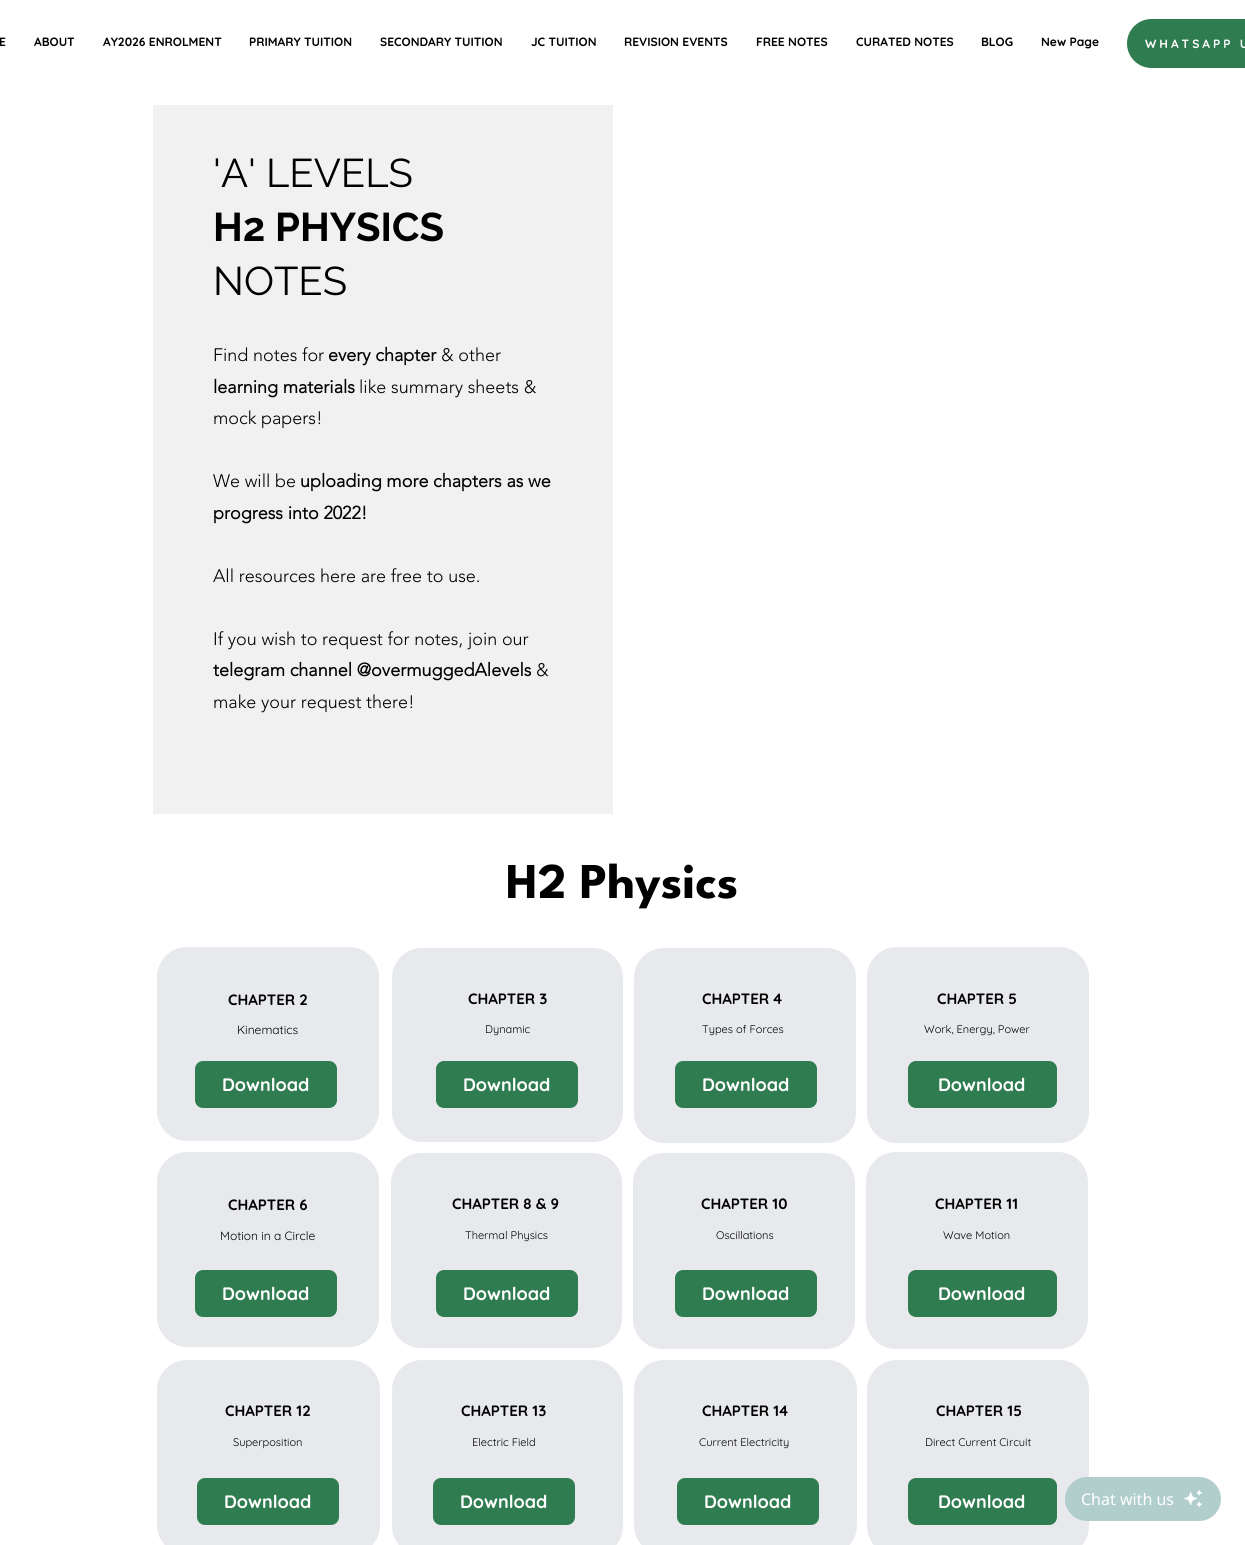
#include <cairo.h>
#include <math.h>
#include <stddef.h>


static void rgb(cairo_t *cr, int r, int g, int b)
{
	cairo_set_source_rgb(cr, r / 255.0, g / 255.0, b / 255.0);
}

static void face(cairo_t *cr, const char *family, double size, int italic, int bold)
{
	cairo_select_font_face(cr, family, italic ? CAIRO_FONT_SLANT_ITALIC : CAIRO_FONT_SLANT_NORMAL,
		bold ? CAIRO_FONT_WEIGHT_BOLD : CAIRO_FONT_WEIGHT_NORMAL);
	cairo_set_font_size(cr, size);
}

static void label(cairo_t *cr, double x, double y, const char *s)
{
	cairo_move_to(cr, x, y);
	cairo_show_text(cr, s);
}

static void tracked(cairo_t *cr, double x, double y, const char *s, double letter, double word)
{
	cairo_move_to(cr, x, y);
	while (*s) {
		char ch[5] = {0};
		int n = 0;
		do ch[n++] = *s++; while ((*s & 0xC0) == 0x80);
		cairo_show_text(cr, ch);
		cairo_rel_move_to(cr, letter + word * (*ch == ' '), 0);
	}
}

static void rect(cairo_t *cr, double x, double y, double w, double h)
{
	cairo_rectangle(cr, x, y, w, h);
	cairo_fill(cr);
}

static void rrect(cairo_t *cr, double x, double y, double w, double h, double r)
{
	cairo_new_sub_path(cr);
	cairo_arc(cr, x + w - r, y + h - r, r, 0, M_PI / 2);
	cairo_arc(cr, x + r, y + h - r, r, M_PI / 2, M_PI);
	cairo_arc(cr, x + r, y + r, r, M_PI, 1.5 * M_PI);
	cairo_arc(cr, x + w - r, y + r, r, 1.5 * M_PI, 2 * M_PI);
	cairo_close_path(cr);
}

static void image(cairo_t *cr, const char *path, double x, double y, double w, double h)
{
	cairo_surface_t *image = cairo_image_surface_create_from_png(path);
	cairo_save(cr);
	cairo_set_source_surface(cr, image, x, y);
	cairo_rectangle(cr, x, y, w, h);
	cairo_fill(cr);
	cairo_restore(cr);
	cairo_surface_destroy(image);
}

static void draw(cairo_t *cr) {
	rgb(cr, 255, 255, 255);
	cairo_paint(cr);
	face(cr, "Quicksand", 12, 0, 1);
	rgb(cr, 0, 0, 0);
	label(cr, -1, 46, "E");
	label(cr, 34, 46, "ABOUT");
	label(cr, 103, 46, "AY2026 ENROLMENT");
	label(cr, 249, 46, "PRIMARY TUITION");
	label(cr, 380, 46, "SECONDARY TUITION");
	label(cr, 531, 46, "JC TUITION");
	label(cr, 624, 46, "REVISION EVENTS");
	label(cr, 756, 46, "FREE NOTES");
	label(cr, 856, 46, "CURATED NOTES");
	label(cr, 981, 46, "BLOG");
	label(cr, 1041, 46, "New Page");
	rgb(cr, 48, 124, 81);
	rrect(cr, 1127, 19, 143, 49, 24.5);
	cairo_fill(cr);
	rgb(cr, 255, 255, 255);
	tracked(cr, 1145, 48, "WHATSAPP U", 3, 0);
	rgb(cr, 241, 241, 241);
	rect(cr, 153, 105, 460, 709);
	face(cr, "Raleway", 40, 0, 0);
	rgb(cr, 0, 0, 0);
	label(cr, 213, 187, "'A' LEVELS");
	face(cr, "Raleway", 40, 0, 1);
	label(cr, 213, 241, "H2 PHYSICS");
	face(cr, "Raleway", 40, 0, 0);
	label(cr, 213, 295, "NOTES");
	face(cr, "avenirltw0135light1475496 Light", 18, 0, 0);
	label(cr, 213, 361, "Find notes for");
	face(cr, "avenirltw0135light1475496", 18, 0, 1);
	label(cr, 328, 361, "every chapter");
	face(cr, "avenirltw0135light1475496 Light", 18, 0, 0);
	label(cr, 441, 361, "& other");
	face(cr, "avenirltw0135light1475496", 18, 0, 1);
	label(cr, 213, 393, "learning materials");
	face(cr, "avenirltw0135light1475496 Light", 18, 0, 0);
	label(cr, 359, 393, "like summary sheets &");
	label(cr, 213, 424, "mock papers!");
	label(cr, 213, 487, "We will be");
	face(cr, "avenirltw0135light1475496", 18, 0, 1);
	label(cr, 300, 487, "uploading more chapters as we");
	label(cr, 213, 519, "progress into 2022!");
	face(cr, "avenirltw0135light1475496 Light", 18, 0, 0);
	label(cr, 213, 582, "All resources here are free to use.");
	label(cr, 213, 645, "If you wish to request for notes, join our");
	face(cr, "avenirltw0135light1475496", 18, 0, 1);
	label(cr, 213, 676, "telegram channel @overmuggedAlevels");
	face(cr, "avenirltw0135light1475496 Light", 18, 0, 0);
	label(cr, 536, 676, "&");
	label(cr, 213, 708, "make your request there!");
	face(cr, "League Spartan", 50, 0, 1);
	label(cr, 506, 898, "H2 Physics");
	rgb(cr, 231, 233, 236);
	rrect(cr, 157, 947, 222, 194, 30);
	cairo_fill(cr);
	face(cr, "Quicksand", 15, 0, 1);
	rgb(cr, 0, 0, 0);
	label(cr, 228, 1005, "CHAPTER 2");
	face(cr, "Quicksand", 12, 0, 0);
	label(cr, 237, 1034, "Kinematics");
	rgb(cr, 48, 124, 81);
	rrect(cr, 195, 1061, 142, 47, 8);
	cairo_fill(cr);
	face(cr, "Quicksand", 18, 0, 1);
	rgb(cr, 255, 255, 255);
	label(cr, 222, 1091, "Download");
	rgb(cr, 231, 233, 236);
	rrect(cr, 392, 948, 231, 194, 30);
	cairo_fill(cr);
	face(cr, "Quicksand", 15, 0, 1);
	rgb(cr, 0, 0, 0);
	label(cr, 468, 1004, "CHAPTER 3");
	face(cr, "Quicksand", 11, 0, 0);
	label(cr, 485, 1033, "Dynamic");
	rgb(cr, 48, 124, 81);
	rrect(cr, 436, 1061, 142, 47, 8);
	cairo_fill(cr);
	face(cr, "Quicksand", 18, 0, 1);
	rgb(cr, 255, 255, 255);
	label(cr, 463, 1091, "Download");
	rgb(cr, 231, 233, 236);
	rrect(cr, 634, 948, 222, 195, 30);
	cairo_fill(cr);
	face(cr, "Quicksand", 15, 0, 1);
	rgb(cr, 0, 0, 0);
	label(cr, 702, 1004, "CHAPTER 4");
	face(cr, "Quicksand", 11, 0, 0);
	label(cr, 702, 1033, "Types of Forces");
	rgb(cr, 48, 124, 81);
	rrect(cr, 675, 1061, 142, 47, 8);
	cairo_fill(cr);
	face(cr, "Quicksand", 18, 0, 1);
	rgb(cr, 255, 255, 255);
	label(cr, 702, 1091, "Download");
	rgb(cr, 231, 233, 236);
	rrect(cr, 867, 947, 222, 196, 30);
	cairo_fill(cr);
	face(cr, "Quicksand", 15, 0, 1);
	rgb(cr, 0, 0, 0);
	label(cr, 937, 1004, "CHAPTER 5");
	face(cr, "Quicksand", 11, 0, 0);
	label(cr, 924, 1033, "Work, Energy, Power");
	rgb(cr, 48, 124, 81);
	rrect(cr, 908, 1061, 149, 47, 8);
	cairo_fill(cr);
	face(cr, "Quicksand", 18, 0, 1);
	rgb(cr, 255, 255, 255);
	label(cr, 938, 1091, "Download");
	rgb(cr, 231, 233, 236);
	rrect(cr, 157, 1152, 222, 195, 30);
	cairo_fill(cr);
	face(cr, "Quicksand", 15, 0, 1);
	rgb(cr, 0, 0, 0);
	label(cr, 228, 1210, "CHAPTER 6");
	face(cr, "Quicksand", 12, 0, 0);
	label(cr, 220, 1240, "Motion in a Circle");
	rgb(cr, 48, 124, 81);
	rrect(cr, 195, 1270, 142, 47, 8);
	cairo_fill(cr);
	face(cr, "Quicksand", 18, 0, 1);
	rgb(cr, 255, 255, 255);
	label(cr, 222, 1300, "Download");
	rgb(cr, 231, 233, 236);
	rrect(cr, 391, 1153, 231, 195, 30);
	cairo_fill(cr);
	face(cr, "Quicksand", 15, 0, 1);
	rgb(cr, 0, 0, 0);
	label(cr, 452, 1209, "CHAPTER 8 & 9");
	face(cr, "Quicksand", 11, 0, 0);
	label(cr, 465, 1239, "Thermal Physics");
	rgb(cr, 48, 124, 81);
	rrect(cr, 436, 1270, 142, 47, 8);
	cairo_fill(cr);
	face(cr, "Quicksand", 18, 0, 1);
	rgb(cr, 255, 255, 255);
	label(cr, 463, 1300, "Download");
	rgb(cr, 231, 233, 236);
	rrect(cr, 633, 1153, 222, 196, 30);
	cairo_fill(cr);
	face(cr, "Quicksand", 15, 0, 1);
	rgb(cr, 0, 0, 0);
	label(cr, 701, 1209, "CHAPTER 10");
	face(cr, "Quicksand", 11, 0, 0);
	label(cr, 716, 1239, "Oscillations");
	rgb(cr, 48, 124, 81);
	rrect(cr, 675, 1270, 142, 47, 8);
	cairo_fill(cr);
	face(cr, "Quicksand", 18, 0, 1);
	rgb(cr, 255, 255, 255);
	label(cr, 702, 1300, "Download");
	rgb(cr, 231, 233, 236);
	rrect(cr, 866, 1152, 222, 197, 30);
	cairo_fill(cr);
	face(cr, "Quicksand", 15, 0, 1);
	rgb(cr, 0, 0, 0);
	label(cr, 935, 1209, "CHAPTER 11");
	face(cr, "Quicksand", 11, 0, 0);
	label(cr, 943, 1239, "Wave Motion");
	rgb(cr, 48, 124, 81);
	rrect(cr, 908, 1270, 149, 47, 8);
	cairo_fill(cr);
	face(cr, "Quicksand", 18, 0, 1);
	rgb(cr, 255, 255, 255);
	label(cr, 938, 1300, "Download");
	rgb(cr, 231, 233, 236);
	rrect(cr, 157, 1360, 223, 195, 30);
	cairo_fill(cr);
	face(cr, "Quicksand", 15, 0, 1);
	rgb(cr, 0, 0, 0);
	label(cr, 225, 1416, "CHAPTER 12");
	face(cr, "Quicksand", 11, 0, 0);
	label(cr, 233, 1446, "Superposition");
	rgb(cr, 48, 124, 81);
	rrect(cr, 197, 1478, 142, 47, 8);
	cairo_fill(cr);
	face(cr, "Quicksand", 18, 0, 1);
	rgb(cr, 255, 255, 255);
	label(cr, 224, 1508, "Download");
	rgb(cr, 231, 233, 236);
	rrect(cr, 392, 1360, 231, 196, 30);
	cairo_fill(cr);
	face(cr, "Quicksand", 15, 0, 1);
	rgb(cr, 0, 0, 0);
	label(cr, 461, 1416, "CHAPTER 13");
	face(cr, "Quicksand", 11, 0, 0);
	label(cr, 472, 1446, "Electric Field");
	rgb(cr, 48, 124, 81);
	rrect(cr, 433, 1478, 142, 47, 8);
	cairo_fill(cr);
	face(cr, "Quicksand", 18, 0, 1);
	rgb(cr, 255, 255, 255);
	label(cr, 460, 1508, "Download");
	rgb(cr, 231, 233, 236);
	rrect(cr, 634, 1360, 223, 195, 30);
	cairo_fill(cr);
	face(cr, "Quicksand", 15, 0, 1);
	rgb(cr, 0, 0, 0);
	label(cr, 702, 1416, "CHAPTER 14");
	face(cr, "Quicksand", 11, 0, 0);
	label(cr, 699, 1446, "Current Electricity");
	rgb(cr, 48, 124, 81);
	rrect(cr, 677, 1478, 142, 47, 8);
	cairo_fill(cr);
	face(cr, "Quicksand", 18, 0, 1);
	rgb(cr, 255, 255, 255);
	label(cr, 704, 1508, "Download");
	rgb(cr, 231, 233, 236);
	rrect(cr, 867, 1360, 222, 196, 30);
	cairo_fill(cr);
	face(cr, "Quicksand", 15, 0, 1);
	rgb(cr, 0, 0, 0);
	label(cr, 936, 1416, "CHAPTER 15");
	face(cr, "Quicksand", 11, 0, 0);
	label(cr, 925, 1446, "Direct Current Circuit");
	rgb(cr, 48, 124, 81);
	rrect(cr, 908, 1478, 149, 47, 8);
	cairo_fill(cr);
	face(cr, "Quicksand", 18, 0, 1);
	rgb(cr, 255, 255, 255);
	label(cr, 938, 1508, "Download");
	rgb(cr, 178, 206, 204);
	rrect(cr, 1065, 1477, 156, 44, 22);
	cairo_fill(cr);
	face(cr, "Noto Sans", 16, 0, 0);
	rgb(cr, 255, 255, 255);
	label(cr, 1081, 1505, "Chat with us");
	image(cr, "image0.png", 1184, 1490, 18, 17);
}

int main(void) {
	cairo_surface_t *surface = cairo_image_surface_create(CAIRO_FORMAT_RGB24, 1245, 1545);
	cairo_t *cr = cairo_create(surface);
	cairo_font_options_t *options = cairo_font_options_create();
	cairo_font_options_set_hint_metrics(options, CAIRO_HINT_METRICS_OFF);
	cairo_font_options_set_hint_style(options, CAIRO_HINT_STYLE_NONE);
	cairo_set_font_options(cr, options);
	cairo_set_miter_limit(cr, 4);
	draw(cr);
	cairo_surface_write_to_png(surface, "render.png");
	cairo_font_options_destroy(options);
	cairo_destroy(cr);
	cairo_surface_destroy(surface);
	return 0;
}
